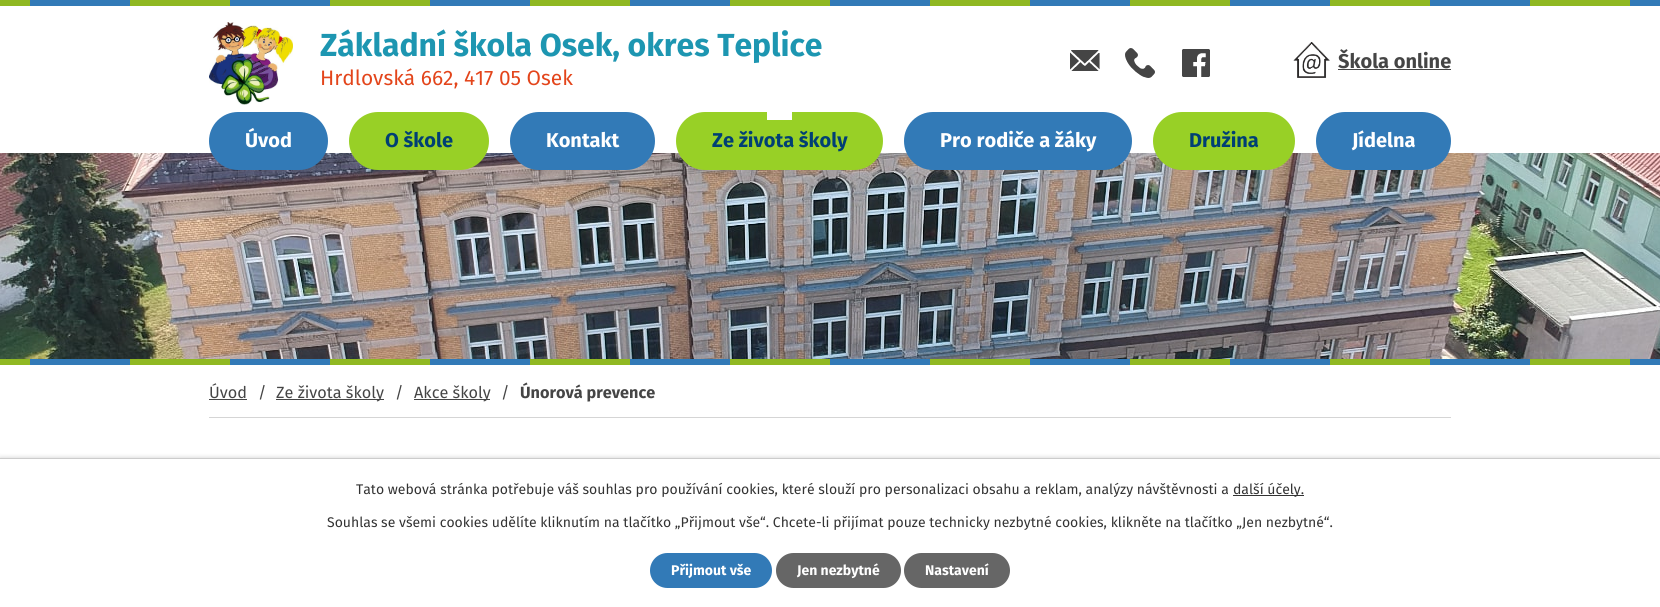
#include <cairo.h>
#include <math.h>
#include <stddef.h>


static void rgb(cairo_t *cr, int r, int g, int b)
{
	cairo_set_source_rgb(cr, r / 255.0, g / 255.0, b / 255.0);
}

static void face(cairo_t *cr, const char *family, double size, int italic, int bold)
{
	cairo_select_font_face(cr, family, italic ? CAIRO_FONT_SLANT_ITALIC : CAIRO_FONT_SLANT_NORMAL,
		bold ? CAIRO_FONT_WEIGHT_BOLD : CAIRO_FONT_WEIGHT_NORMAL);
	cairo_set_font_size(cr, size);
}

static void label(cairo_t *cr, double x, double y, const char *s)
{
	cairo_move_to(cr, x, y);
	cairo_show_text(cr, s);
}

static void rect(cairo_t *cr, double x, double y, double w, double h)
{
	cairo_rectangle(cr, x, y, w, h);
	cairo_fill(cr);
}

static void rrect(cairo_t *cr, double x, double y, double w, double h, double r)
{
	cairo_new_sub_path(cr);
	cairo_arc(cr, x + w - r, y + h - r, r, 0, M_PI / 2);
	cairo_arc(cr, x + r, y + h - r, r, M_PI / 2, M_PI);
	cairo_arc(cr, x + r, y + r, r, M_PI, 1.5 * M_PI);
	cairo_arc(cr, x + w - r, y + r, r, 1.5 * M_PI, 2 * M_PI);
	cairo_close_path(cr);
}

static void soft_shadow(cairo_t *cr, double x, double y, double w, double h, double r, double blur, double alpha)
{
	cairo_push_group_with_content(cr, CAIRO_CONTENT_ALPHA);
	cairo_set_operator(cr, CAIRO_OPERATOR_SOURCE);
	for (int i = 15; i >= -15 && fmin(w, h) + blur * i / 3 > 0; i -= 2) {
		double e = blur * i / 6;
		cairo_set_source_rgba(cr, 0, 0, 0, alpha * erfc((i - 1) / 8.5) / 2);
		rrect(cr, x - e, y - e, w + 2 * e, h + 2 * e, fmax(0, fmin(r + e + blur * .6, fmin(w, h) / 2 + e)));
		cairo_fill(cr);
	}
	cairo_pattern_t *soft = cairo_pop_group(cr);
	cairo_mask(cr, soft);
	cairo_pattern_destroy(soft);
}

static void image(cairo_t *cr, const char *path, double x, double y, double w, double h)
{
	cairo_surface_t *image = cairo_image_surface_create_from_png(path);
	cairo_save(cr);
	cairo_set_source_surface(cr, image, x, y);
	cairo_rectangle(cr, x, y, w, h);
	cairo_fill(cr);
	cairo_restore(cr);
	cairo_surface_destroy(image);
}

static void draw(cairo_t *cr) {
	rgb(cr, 255, 255, 255);
	cairo_paint(cr);
	image(cr, "image0.png", 0, 0, 1660, 6);
	image(cr, "image1.png", 209, 22, 84, 83);
	face(cr, "Fira Sans", 31.9, 0, 1);
	rgb(cr, 29, 150, 177);
	label(cr, 320, 56, "Základní škola Osek, okres Teplice");
	face(cr, "Fira Sans", 20.9, 0, 0);
	rgb(cr, 227, 69, 27);
	label(cr, 320, 85, "Hrdlovská 662, 417 05 Osek");
	image(cr, "image2.png", 1070, 50, 30, 21);
	image(cr, "image3.png", 1125, 48, 30, 30);
	image(cr, "image4.png", 1182, 49, 28, 28);
	image(cr, "image5.png", 1293, 42, 37, 36);
	face(cr, "Fira Sans", 20, 0, 1);
	rgb(cr, 69, 69, 69);
	label(cr, 1338, 68, "Škola online");
	rect(cr, 1338, 69, 113, 1);
	image(cr, "image6.png", 0, 153, 1660, 206);
	image(cr, "image0.png", 0, 359, 1660, 6);
	rgb(cr, 50, 122, 183);
	rrect(cr, 209, 112, 119, 58, 29);
	cairo_fill(cr);
	rgb(cr, 255, 255, 255);
	label(cr, 245, 147, "Úvod");
	rgb(cr, 152, 208, 38);
	rrect(cr, 349, 112, 140, 58, 29);
	cairo_fill(cr);
	rgb(cr, 0, 63, 116);
	label(cr, 385, 147, "O škole");
	rgb(cr, 50, 122, 183);
	rrect(cr, 510, 112, 145, 58, 29);
	cairo_fill(cr);
	rgb(cr, 255, 255, 255);
	label(cr, 546, 147, "Kontakt");
	rgb(cr, 152, 208, 38);
	rrect(cr, 676, 112, 207, 58, 29);
	cairo_fill(cr);
	rgb(cr, 255, 255, 255);
	rect(cr, 767, 112, 25, 8);
	rgb(cr, 0, 63, 116);
	label(cr, 712, 147, "Ze života školy");
	rgb(cr, 50, 122, 183);
	rrect(cr, 904, 112, 228, 58, 29);
	cairo_fill(cr);
	rgb(cr, 255, 255, 255);
	label(cr, 940, 147, "Pro rodiče a žáky");
	rgb(cr, 152, 208, 38);
	rrect(cr, 1153, 112, 142, 58, 29);
	cairo_fill(cr);
	rgb(cr, 0, 63, 116);
	label(cr, 1189, 147, "Družina");
	rgb(cr, 50, 122, 183);
	rrect(cr, 1316, 112, 135, 58, 29);
	cairo_fill(cr);
	rgb(cr, 255, 255, 255);
	label(cr, 1352, 147, "Jídelna");
	rgb(cr, 213, 213, 213);
	rect(cr, 209, 417, 1242, 1);
	face(cr, "Fira Sans", 16.25, 0, 0);
	rgb(cr, 69, 69, 69);
	label(cr, 209, 398, "Úvod");
	rect(cr, 209, 399, 38, 1);
	label(cr, 258, 398, "/");
	rect(cr, 276, 399, 108, 1);
	label(cr, 276, 398, "Ze života školy");
	label(cr, 395, 398, "/");
	rect(cr, 414, 399, 76, 1);
	label(cr, 414, 398, "Akce školy");
	label(cr, 501, 398, "/");
	face(cr, "Fira Sans", 16.25, 0, 1);
	label(cr, 520, 398, "Únorová prevence");
	rgb(cr, 0, 0, 0);
	soft_shadow(cr, 0, 458, 1660, 149, 0, 2.5, 0.2);
	rgb(cr, 255, 255, 255);
	rect(cr, 0, 459, 1660, 148);
	rgb(cr, 204, 204, 204);
	rect(cr, 0, 458, 1660, 1);
	face(cr, "Fira Sans", 14, 0, 0);
	rgb(cr, 51, 51, 51);
	label(cr, 356, 494, "Tato webová stránka potřebuje váš souhlas pro používání cookies, které slouží pro personalizaci obsahu a reklam, analýzy návštěvnosti a");
	rect(cr, 1233, 495, 71, 1);
	label(cr, 1233, 494, "další účely.");
	label(cr, 327, 527, "Souhlas se všemi cookies udělíte kliknutím na tlačítko „Přijmout vše“. Chcete-li přijímat pouze technicky nezbytné cookies, klikněte na tlačítko „Jen nezbytné“.");
	rgb(cr, 50, 122, 183);
	rrect(cr, 650, 553, 122, 35, 17.5);
	cairo_fill(cr);
	face(cr, "Fira Sans", 14, 0, 1);
	rgb(cr, 255, 255, 255);
	label(cr, 671, 575, "Přijmout vše");
	rgb(cr, 102, 102, 102);
	rrect(cr, 776, 553, 125, 35, 17.5);
	cairo_fill(cr);
	rgb(cr, 255, 255, 255);
	label(cr, 797, 575, "Jen nezbytné");
	rgb(cr, 102, 102, 102);
	rrect(cr, 904, 553, 106, 35, 17.5);
	cairo_fill(cr);
	rgb(cr, 255, 255, 255);
	label(cr, 925, 575, "Nastavení");
}

int main(void) {
	cairo_surface_t *surface = cairo_image_surface_create(CAIRO_FORMAT_RGB24, 1660, 607);
	cairo_t *cr = cairo_create(surface);
	cairo_font_options_t *options = cairo_font_options_create();
	cairo_font_options_set_hint_metrics(options, CAIRO_HINT_METRICS_OFF);
	cairo_font_options_set_hint_style(options, CAIRO_HINT_STYLE_NONE);
	cairo_set_font_options(cr, options);
	cairo_set_miter_limit(cr, 4);
	draw(cr);
	cairo_surface_write_to_png(surface, "render.png");
	cairo_font_options_destroy(options);
	cairo_destroy(cr);
	cairo_surface_destroy(surface);
	return 0;
}
